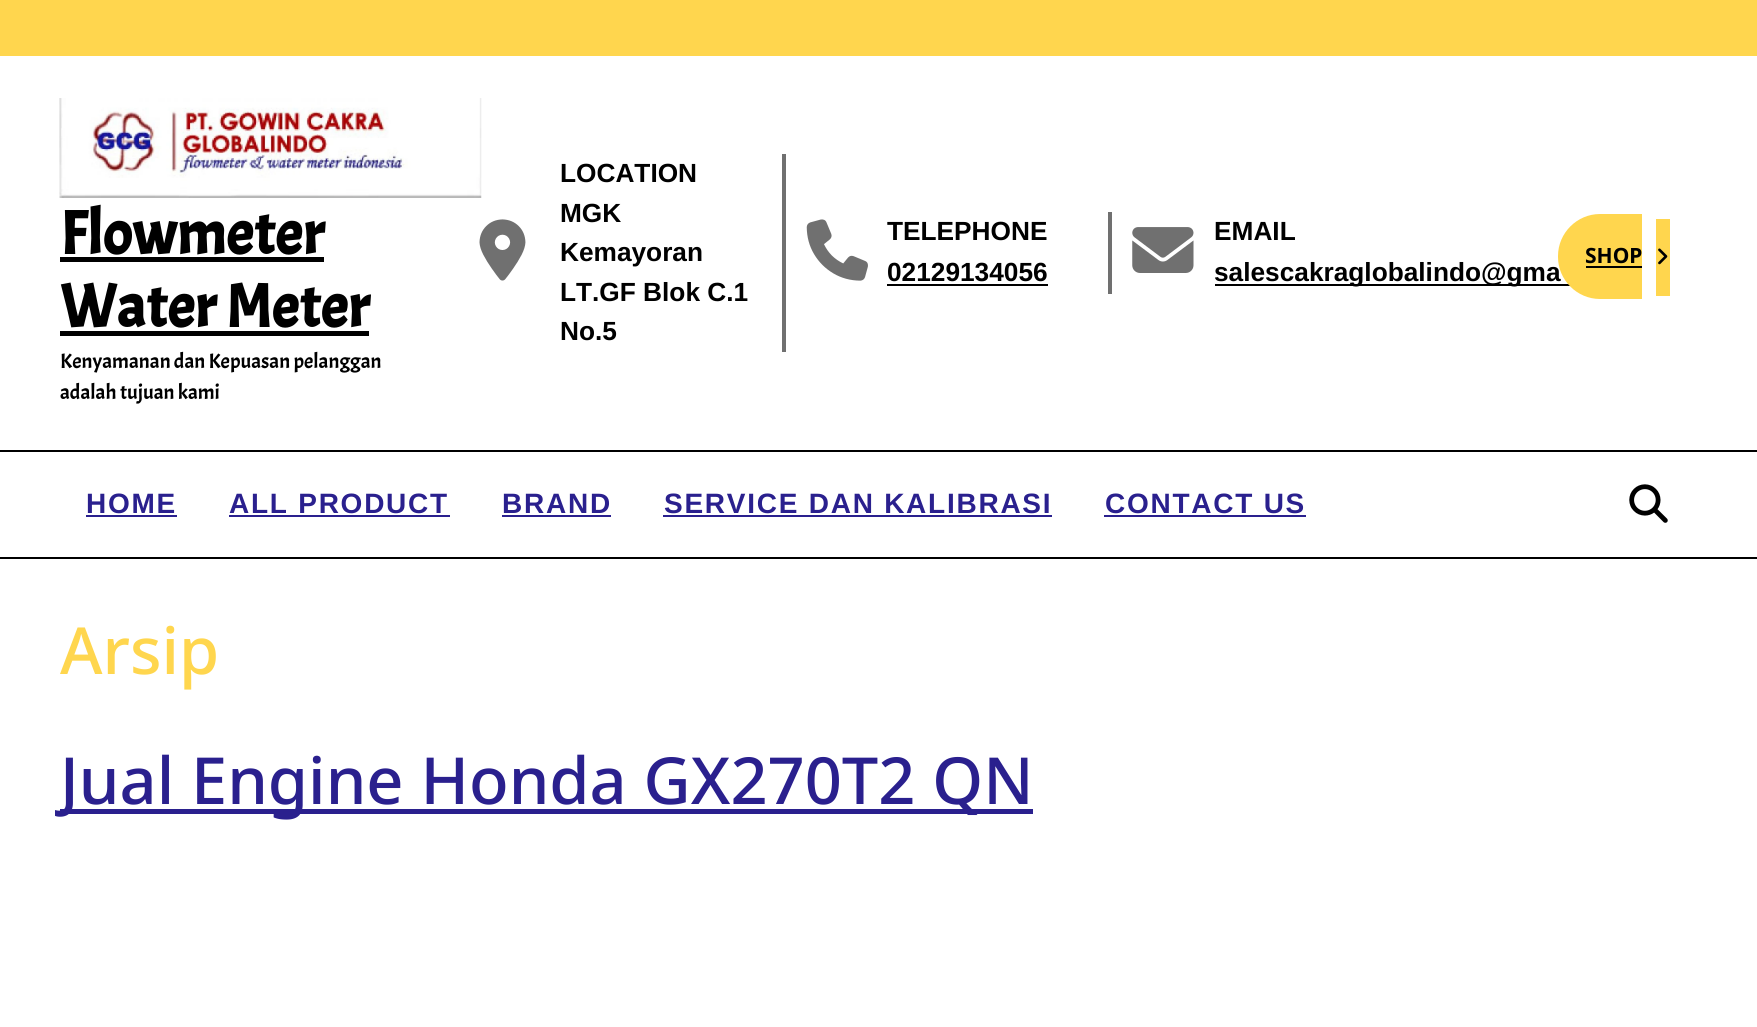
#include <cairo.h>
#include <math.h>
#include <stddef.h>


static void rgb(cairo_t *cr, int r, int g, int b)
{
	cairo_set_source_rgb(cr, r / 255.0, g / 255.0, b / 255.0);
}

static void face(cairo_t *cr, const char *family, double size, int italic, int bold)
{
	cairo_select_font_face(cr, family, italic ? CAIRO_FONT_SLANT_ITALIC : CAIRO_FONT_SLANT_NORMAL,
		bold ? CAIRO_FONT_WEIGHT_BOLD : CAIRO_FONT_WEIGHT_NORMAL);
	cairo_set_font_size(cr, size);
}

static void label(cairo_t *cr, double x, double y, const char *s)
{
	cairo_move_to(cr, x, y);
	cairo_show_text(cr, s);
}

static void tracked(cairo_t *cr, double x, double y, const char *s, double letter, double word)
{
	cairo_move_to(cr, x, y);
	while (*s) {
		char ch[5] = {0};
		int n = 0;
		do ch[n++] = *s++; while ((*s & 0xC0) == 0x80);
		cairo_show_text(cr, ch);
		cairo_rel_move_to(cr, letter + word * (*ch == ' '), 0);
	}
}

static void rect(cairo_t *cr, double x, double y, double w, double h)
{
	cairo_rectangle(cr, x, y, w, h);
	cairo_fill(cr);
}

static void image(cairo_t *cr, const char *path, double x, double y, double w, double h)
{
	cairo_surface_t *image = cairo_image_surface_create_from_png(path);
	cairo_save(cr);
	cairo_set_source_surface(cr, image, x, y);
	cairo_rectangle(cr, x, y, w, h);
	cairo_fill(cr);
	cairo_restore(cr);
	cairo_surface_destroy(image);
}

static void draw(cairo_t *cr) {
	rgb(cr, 255, 255, 255);
	cairo_paint(cr);
	rgb(cr, 255, 214, 78);
	rect(cr, 0, 0, 1757, 56);
	image(cr, "image0.png", 59, 98, 423, 100);
	face(cr, "Acme", 61.25, 0, 1);
	rgb(cr, 0, 0, 0);
	label(cr, 60, 254, "Flowmeter");
	rect(cr, 60, 257, 264, 5);
	label(cr, 60, 327, "Water Meter");
	rect(cr, 60, 331, 309, 5);
	face(cr, "Acme", 21, 0, 0);
	label(cr, 60, 368, "Kenyamanan dan Kepuasan pelanggan");
	label(cr, 60, 399, "adalah tujuan kami");
	rgb(cr, 112, 112, 112);
	rect(cr, 782, 154, 4, 198);
	image(cr, "image1.png", 479, 219, 47, 62);
	face(cr, "Liberation Sans", 26.25, 0, 1);
	rgb(cr, 0, 0, 0);
	label(cr, 560, 182, "LOCATION");
	label(cr, 560, 222, "MGK");
	label(cr, 560, 261, "Kemayoran");
	label(cr, 560, 301, "LT.GF Blok C.1");
	label(cr, 560, 340, "No.5");
	rgb(cr, 112, 112, 112);
	rect(cr, 1108, 212, 4, 82);
	image(cr, "image2.png", 806, 219, 62, 62);
	rgb(cr, 0, 0, 0);
	label(cr, 887, 240, "TELEPHONE");
	label(cr, 887, 281, "02129134056");
	rect(cr, 887, 284, 161, 2);
	image(cr, "image3.png", 1132, 227, 62, 46);
	label(cr, 1214, 240, "EMAIL");
	rect(cr, 1215, 284, 355, 2);
	label(cr, 1214, 281, "salescakraglobalindo@gma");
	rgb(cr, 255, 214, 78);
	cairo_new_path(cr);
	cairo_move_to(cr, 1600, 214);
	cairo_line_to(cr, 1642, 214);
	cairo_line_to(cr, 1642, 299);
	cairo_line_to(cr, 1600, 299);
	cairo_curve_to(cr, 1577, 299, 1558, 280, 1558, 257);
	cairo_line_to(cr, 1558, 256);
	cairo_curve_to(cr, 1558, 233, 1577, 214, 1600, 214);
	cairo_close_path(cr);
	cairo_fill(cr);
	rect(cr, 1656, 219, 14, 77);
	face(cr, "Noto Sans", 21, 0, 1);
	rgb(cr, 0, 0, 0);
	label(cr, 1585, 263, "SHOP");
	rect(cr, 1586, 266, 56, 2);
	image(cr, "image4.png", 1658, 248, 10, 17);
	rect(cr, 0, 450, 1757, 2);
	rect(cr, 0, 557, 1757, 2);
	face(cr, "Liberation Sans", 28, 0, 1);
	rgb(cr, 42, 32, 142);
	tracked(cr, 86, 513, "HOME", 1.75, 0);
	rect(cr, 86, 515, 91, 2);
	tracked(cr, 229, 513, "ALL PRODUCT", 1.75, 0);
	rect(cr, 229, 515, 221, 2);
	tracked(cr, 502, 513, "BRAND", 1.75, 0);
	rect(cr, 502, 515, 109, 2);
	tracked(cr, 664, 513, "SERVICE DAN KALIBRASI", 1.75, 0);
	rect(cr, 663, 515, 389, 2);
	tracked(cr, 1105, 513, "CONTACT US", 1.75, 0);
	rect(cr, 1104, 515, 202, 2);
	image(cr, "image5.png", 1629, 484, 39, 39);
	face(cr, "Noto Sans Medium", 64.9, 0, 0);
	rgb(cr, 255, 214, 78);
	label(cr, 60, 674, "Arsip");
	rgb(cr, 42, 32, 142);
	rect(cr, 60, 809, 973, 5);
	label(cr, 60, 804, "Jual Engine Honda GX270T2 QN");
}

int main(void) {
	cairo_surface_t *surface = cairo_image_surface_create(CAIRO_FORMAT_RGB24, 1757, 1027);
	cairo_t *cr = cairo_create(surface);
	cairo_font_options_t *options = cairo_font_options_create();
	cairo_font_options_set_hint_metrics(options, CAIRO_HINT_METRICS_OFF);
	cairo_font_options_set_hint_style(options, CAIRO_HINT_STYLE_NONE);
	cairo_set_font_options(cr, options);
	cairo_set_miter_limit(cr, 4);
	draw(cr);
	cairo_surface_write_to_png(surface, "render.png");
	cairo_font_options_destroy(options);
	cairo_destroy(cr);
	cairo_surface_destroy(surface);
	return 0;
}
